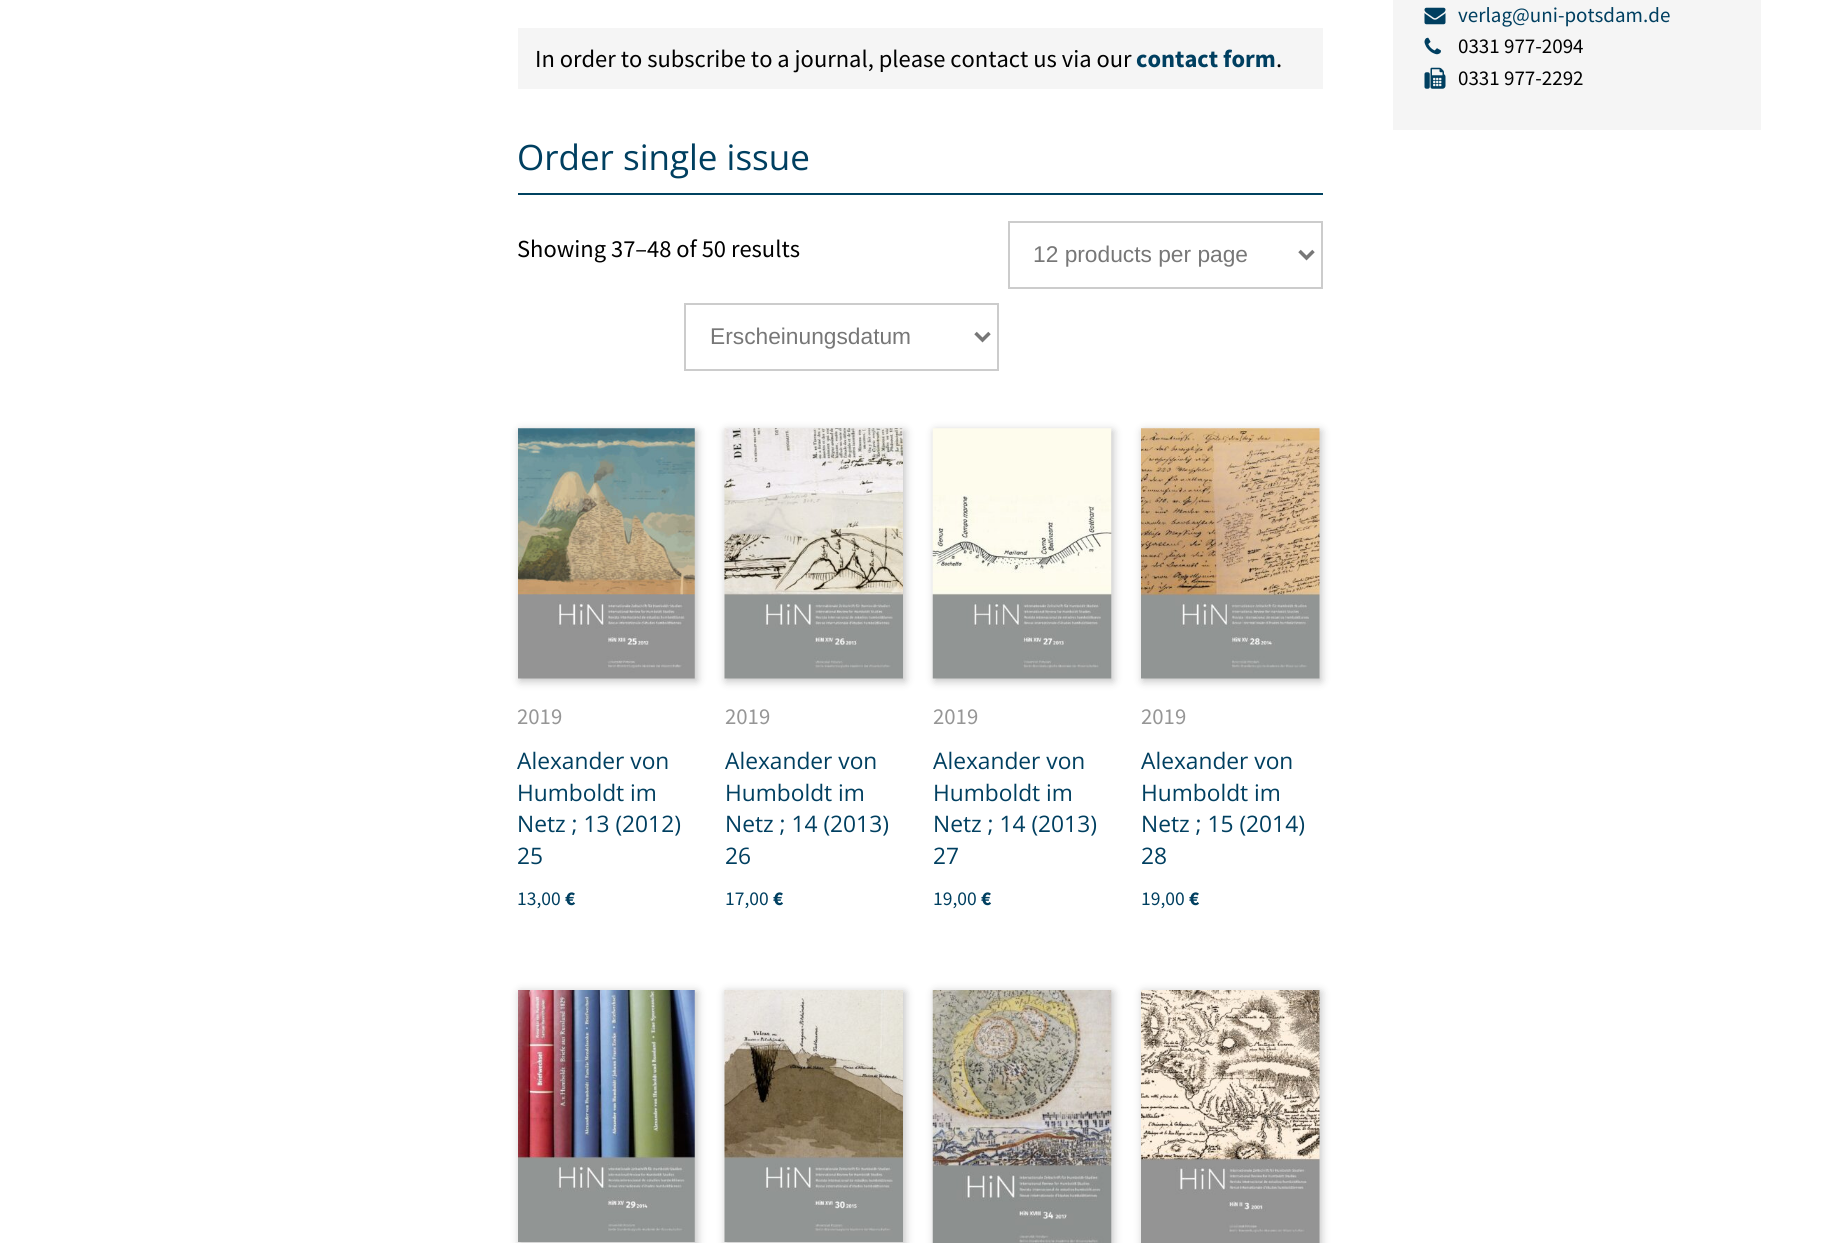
#include <cairo.h>
#include <math.h>
#include <stddef.h>


static void rgb(cairo_t *cr, int r, int g, int b)
{
	cairo_set_source_rgb(cr, r / 255.0, g / 255.0, b / 255.0);
}

static void face(cairo_t *cr, const char *family, double size, int italic, int bold)
{
	cairo_select_font_face(cr, family, italic ? CAIRO_FONT_SLANT_ITALIC : CAIRO_FONT_SLANT_NORMAL,
		bold ? CAIRO_FONT_WEIGHT_BOLD : CAIRO_FONT_WEIGHT_NORMAL);
	cairo_set_font_size(cr, size);
}

static void label(cairo_t *cr, double x, double y, const char *s)
{
	cairo_move_to(cr, x, y);
	cairo_show_text(cr, s);
}

static void rect(cairo_t *cr, double x, double y, double w, double h)
{
	cairo_rectangle(cr, x, y, w, h);
	cairo_fill(cr);
}

static void rrect(cairo_t *cr, double x, double y, double w, double h, double r)
{
	cairo_new_sub_path(cr);
	cairo_arc(cr, x + w - r, y + h - r, r, 0, M_PI / 2);
	cairo_arc(cr, x + r, y + h - r, r, M_PI / 2, M_PI);
	cairo_arc(cr, x + r, y + r, r, M_PI, 1.5 * M_PI);
	cairo_arc(cr, x + w - r, y + r, r, 1.5 * M_PI, 2 * M_PI);
	cairo_close_path(cr);
}

static void soft_shadow(cairo_t *cr, double x, double y, double w, double h, double r, double blur, double alpha)
{
	cairo_push_group_with_content(cr, CAIRO_CONTENT_ALPHA);
	cairo_set_operator(cr, CAIRO_OPERATOR_SOURCE);
	for (int i = 15; i >= -15 && fmin(w, h) + blur * i / 3 > 0; i -= 2) {
		double e = blur * i / 6;
		cairo_set_source_rgba(cr, 0, 0, 0, alpha * erfc((i - 1) / 8.5) / 2);
		rrect(cr, x - e, y - e, w + 2 * e, h + 2 * e, fmax(0, fmin(r + e + blur * .6, fmin(w, h) / 2 + e)));
		cairo_fill(cr);
	}
	cairo_pattern_t *soft = cairo_pop_group(cr);
	cairo_mask(cr, soft);
	cairo_pattern_destroy(soft);
}

static void image(cairo_t *cr, const char *path, double x, double y, double w, double h)
{
	cairo_surface_t *image = cairo_image_surface_create_from_png(path);
	cairo_save(cr);
	cairo_set_source_surface(cr, image, x, y);
	cairo_rectangle(cr, x, y, w, h);
	cairo_fill(cr);
	cairo_restore(cr);
	cairo_surface_destroy(image);
}

static void draw(cairo_t *cr) {
	rgb(cr, 255, 255, 255);
	cairo_paint(cr);
	rgb(cr, 245, 245, 245);
	rect(cr, 518, 28, 805, 61);
	face(cr, "Source Sans Pro", 24.5, 0, 0);
	rgb(cr, 0, 0, 0);
	label(cr, 535, 67, "In order to subscribe to a journal, please contact us via our");
	face(cr, "Source Sans Pro", 24.5, 0, 1);
	rgb(cr, 0, 63, 96);
	label(cr, 1136, 67, "contact form");
	face(cr, "Source Sans Pro", 24.5, 0, 0);
	rgb(cr, 0, 0, 0);
	label(cr, 1276, 67, ".");
	rgb(cr, 0, 66, 96);
	rect(cr, 518, 193, 805, 2);
	face(cr, "Open Sans", 35, 0, 0);
	rgb(cr, 0, 63, 96);
	label(cr, 517, 170, "Order single issue");
	face(cr, "Source Sans Pro", 24.5, 0, 0);
	rgb(cr, 0, 0, 0);
	label(cr, 517, 257, "Showing 37–48 of 50 results");
	cairo_rectangle(cr, 1009, 222, 313, 66);
	rgb(cr, 204, 204, 204);
	cairo_stroke(cr);
	cairo_new_path(cr);
	cairo_move_to(cr, 1299.5, 251);
	cairo_line_to(cr, 1306.5, 258);
	cairo_line_to(cr, 1313.5, 251);
	rgb(cr, 119, 119, 119);
	cairo_set_line_width(cr, 3.5);
	cairo_stroke(cr);
	face(cr, "Liberation Sans", 22.75, 0, 0);
	label(cr, 1033, 262, "12 products per page");
	cairo_rectangle(cr, 685, 304, 313, 66);
	rgb(cr, 204, 204, 204);
	cairo_set_line_width(cr, 2);
	cairo_stroke(cr);
	cairo_new_path(cr);
	cairo_move_to(cr, 975.5, 333);
	cairo_line_to(cr, 982.5, 340);
	cairo_line_to(cr, 989.5, 333);
	rgb(cr, 119, 119, 119);
	cairo_set_line_width(cr, 3.5);
	cairo_stroke(cr);
	label(cr, 710, 344, "Erscheinungsdatum");
	rgb(cr, 0, 0, 0);
	soft_shadow(cr, 520, 431, 177, 250, 0, 4.5, 0.25);
	image(cr, "image0.png", 518, 428, 177, 251);
	face(cr, "Source Sans Pro", 22.75, 0, 0);
	rgb(cr, 150, 150, 150);
	label(cr, 517, 724, "2019");
	face(cr, "Open Sans", 22.75, 0, 0);
	rgb(cr, 0, 63, 96);
	label(cr, 517, 769, "Alexander von");
	label(cr, 517, 801, "Humboldt im");
	label(cr, 517, 832, "Netz ; 13 (2012)");
	label(cr, 517, 864, "25");
	face(cr, "Source Sans Pro", 19.5, 0, 0);
	label(cr, 517, 905, "13,00");
	face(cr, "Source Sans Pro", 19.5, 0, 1);
	label(cr, 565, 905, "€");
	rgb(cr, 0, 0, 0);
	soft_shadow(cr, 726, 431, 179, 250, 0, 4.5, 0.25);
	image(cr, "image1.png", 724, 428, 179, 251);
	face(cr, "Source Sans Pro", 22.75, 0, 0);
	rgb(cr, 150, 150, 150);
	label(cr, 725, 724, "2019");
	face(cr, "Open Sans", 22.75, 0, 0);
	rgb(cr, 0, 63, 96);
	label(cr, 725, 769, "Alexander von");
	label(cr, 725, 801, "Humboldt im");
	label(cr, 725, 832, "Netz ; 14 (2013)");
	label(cr, 725, 864, "26");
	face(cr, "Source Sans Pro", 19.5, 0, 0);
	label(cr, 725, 905, "17,00");
	face(cr, "Source Sans Pro", 19.5, 0, 1);
	label(cr, 773, 905, "€");
	rgb(cr, 0, 0, 0);
	soft_shadow(cr, 935, 431, 178, 250, 0, 4.5, 0.25);
	image(cr, "image2.png", 932, 428, 180, 251);
	face(cr, "Source Sans Pro", 22.75, 0, 0);
	rgb(cr, 150, 150, 150);
	label(cr, 933, 724, "2019");
	face(cr, "Open Sans", 22.75, 0, 0);
	rgb(cr, 0, 63, 96);
	label(cr, 933, 769, "Alexander von");
	label(cr, 933, 801, "Humboldt im");
	label(cr, 933, 832, "Netz ; 14 (2013)");
	label(cr, 933, 864, "27");
	face(cr, "Source Sans Pro", 19.5, 0, 0);
	label(cr, 933, 905, "19,00");
	face(cr, "Source Sans Pro", 19.5, 0, 1);
	label(cr, 981, 905, "€");
	rgb(cr, 0, 0, 0);
	soft_shadow(cr, 1143, 431, 178, 250, 0, 4.5, 0.25);
	image(cr, "image3.png", 1141, 428, 179, 251);
	face(cr, "Source Sans Pro", 22.75, 0, 0);
	rgb(cr, 150, 150, 150);
	label(cr, 1141, 724, "2019");
	face(cr, "Open Sans", 22.75, 0, 0);
	rgb(cr, 0, 63, 96);
	label(cr, 1141, 769, "Alexander von");
	label(cr, 1141, 801, "Humboldt im");
	label(cr, 1141, 832, "Netz ; 15 (2014)");
	label(cr, 1141, 864, "28");
	face(cr, "Source Sans Pro", 19.5, 0, 0);
	label(cr, 1141, 905, "19,00");
	face(cr, "Source Sans Pro", 19.5, 0, 1);
	label(cr, 1189, 905, "€");
	rgb(cr, 0, 0, 0);
	soft_shadow(cr, 520, 992, 177, 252, 0, 4.5, 0.25);
	image(cr, "image4.png", 518, 990, 177, 252);
	soft_shadow(cr, 726, 992, 179, 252, 0, 4.5, 0.25);
	image(cr, "image5.png", 724, 990, 179, 252);
	soft_shadow(cr, 935, 992, 178, 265, 0, 4.5, 0.25);
	image(cr, "image6.png", 932, 990, 180, 253);
	soft_shadow(cr, 1143, 992, 178, 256, 0, 4.5, 0.25);
	image(cr, "image7.png", 1141, 990, 179, 253);
	rgb(cr, 245, 245, 245);
	rect(cr, 1393, 0, 368, 130);
	image(cr, "image8.png", 1424, 7, 22, 18);
	face(cr, "Source Sans Pro", 21, 0, 0);
	rgb(cr, 0, 63, 96);
	label(cr, 1458, 22, "verlag@uni-potsdam.de");
	image(cr, "image9.png", 1424, 37, 17, 18);
	rgb(cr, 0, 0, 0);
	label(cr, 1458, 53, "0331 977-2094");
	image(cr, "image10.png", 1424, 67, 22, 22);
	label(cr, 1458, 85, "0331 977-2292");
}

int main(void) {
	cairo_surface_t *surface = cairo_image_surface_create(CAIRO_FORMAT_RGB24, 1839, 1243);
	cairo_t *cr = cairo_create(surface);
	cairo_font_options_t *options = cairo_font_options_create();
	cairo_font_options_set_hint_metrics(options, CAIRO_HINT_METRICS_OFF);
	cairo_font_options_set_hint_style(options, CAIRO_HINT_STYLE_NONE);
	cairo_set_font_options(cr, options);
	cairo_set_miter_limit(cr, 4);
	draw(cr);
	cairo_surface_write_to_png(surface, "render.png");
	cairo_font_options_destroy(options);
	cairo_destroy(cr);
	cairo_surface_destroy(surface);
	return 0;
}
